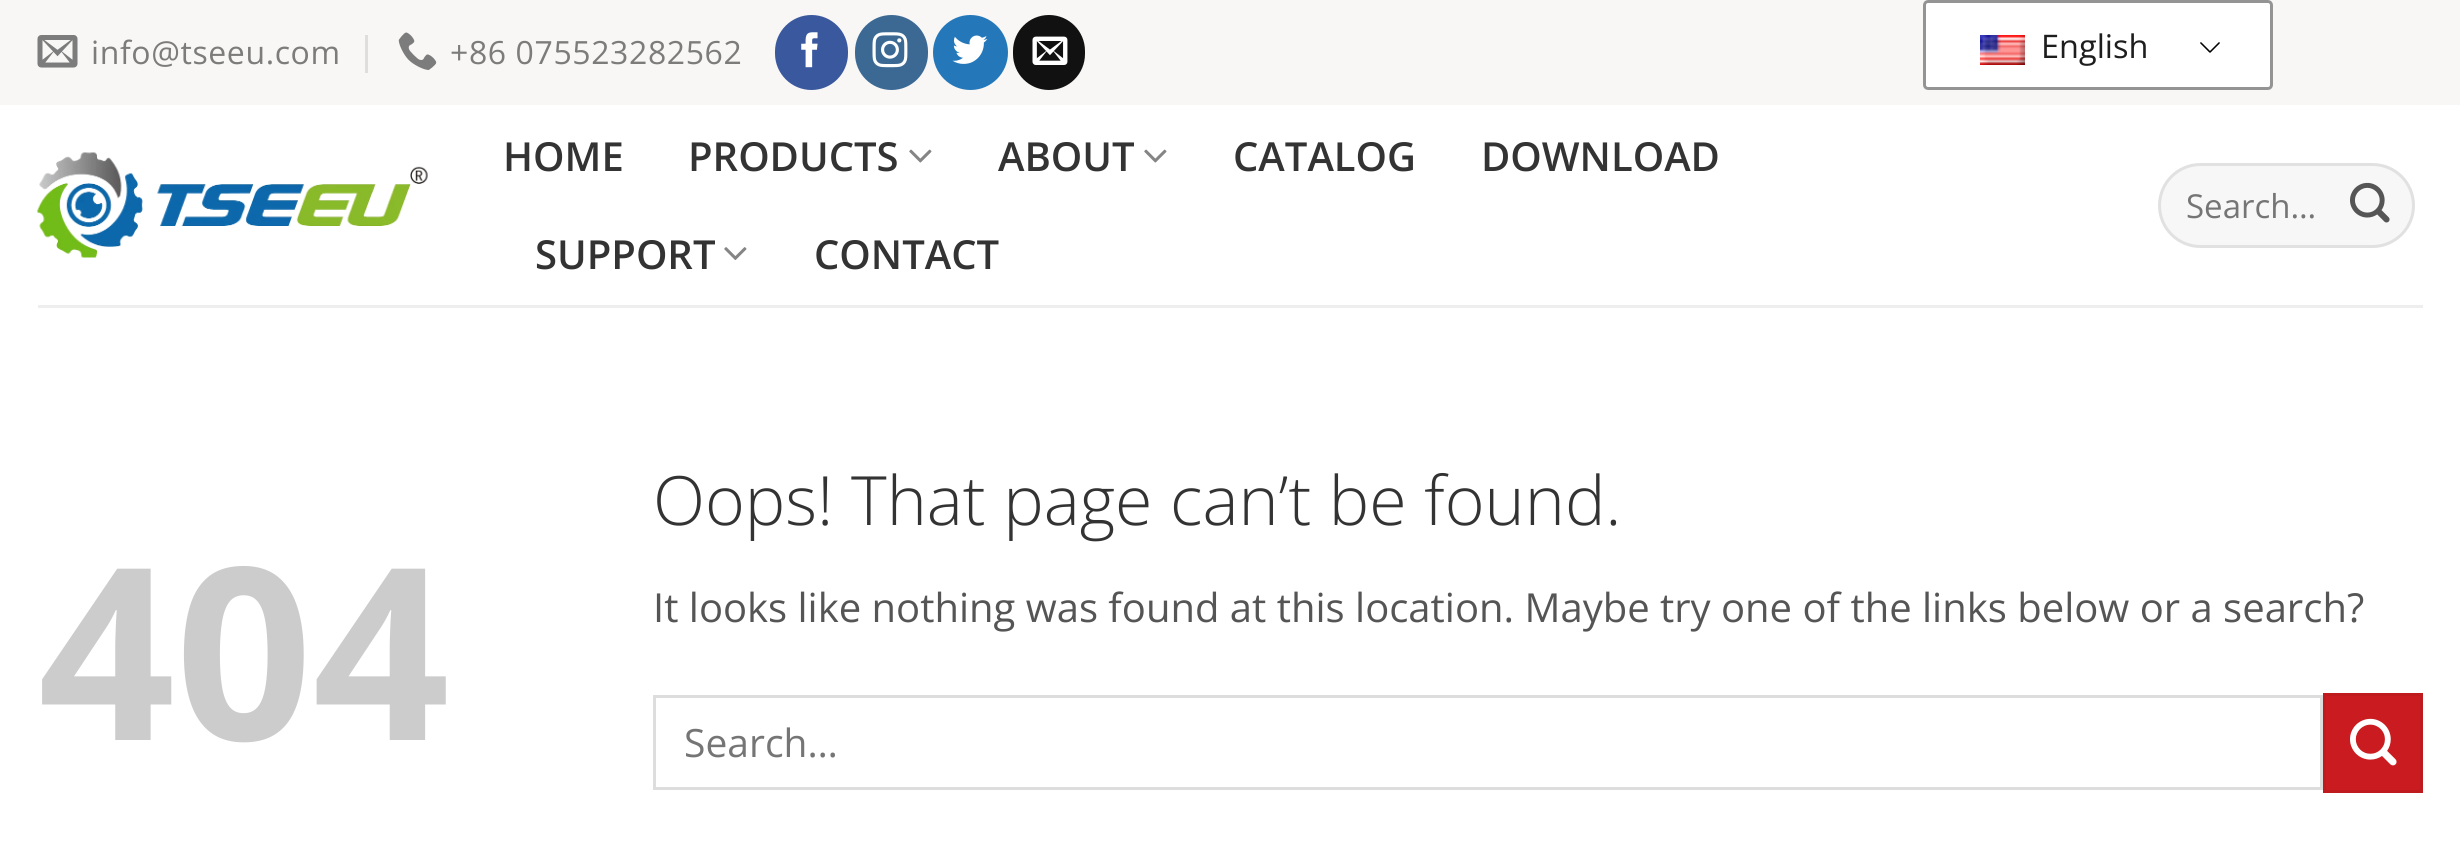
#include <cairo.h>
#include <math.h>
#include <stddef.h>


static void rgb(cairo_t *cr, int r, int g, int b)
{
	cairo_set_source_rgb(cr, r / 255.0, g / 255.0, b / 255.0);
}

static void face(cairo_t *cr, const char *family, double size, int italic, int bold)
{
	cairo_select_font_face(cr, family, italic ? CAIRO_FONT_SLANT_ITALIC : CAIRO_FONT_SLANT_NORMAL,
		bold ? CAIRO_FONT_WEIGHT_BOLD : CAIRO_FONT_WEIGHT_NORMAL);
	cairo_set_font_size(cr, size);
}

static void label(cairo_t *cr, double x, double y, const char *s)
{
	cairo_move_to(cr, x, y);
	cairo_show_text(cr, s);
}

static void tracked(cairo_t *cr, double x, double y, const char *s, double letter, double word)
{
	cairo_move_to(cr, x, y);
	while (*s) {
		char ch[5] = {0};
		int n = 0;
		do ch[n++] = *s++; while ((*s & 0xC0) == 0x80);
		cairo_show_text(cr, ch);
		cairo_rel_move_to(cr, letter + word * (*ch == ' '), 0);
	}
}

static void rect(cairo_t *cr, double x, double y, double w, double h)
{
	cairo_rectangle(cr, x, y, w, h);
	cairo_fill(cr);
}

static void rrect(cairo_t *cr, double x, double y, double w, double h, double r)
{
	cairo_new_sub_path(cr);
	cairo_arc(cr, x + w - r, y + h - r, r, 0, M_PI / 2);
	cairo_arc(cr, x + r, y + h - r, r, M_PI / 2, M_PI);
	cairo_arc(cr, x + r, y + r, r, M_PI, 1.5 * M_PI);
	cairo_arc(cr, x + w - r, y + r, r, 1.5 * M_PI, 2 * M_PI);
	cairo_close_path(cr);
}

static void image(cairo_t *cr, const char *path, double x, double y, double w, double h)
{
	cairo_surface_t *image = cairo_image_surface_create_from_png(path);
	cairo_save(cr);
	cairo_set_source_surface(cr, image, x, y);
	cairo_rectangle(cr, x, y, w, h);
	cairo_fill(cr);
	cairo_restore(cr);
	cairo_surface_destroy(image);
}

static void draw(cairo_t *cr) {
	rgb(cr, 255, 255, 255);
	cairo_paint(cr);
	rgb(cr, 248, 247, 245);
	rect(cr, 0, 0, 2460, 105);
	image(cr, "image0.png", 37, 35, 41, 33);
	face(cr, "Open Sans", 32, 0, 0);
	rgb(cr, 124, 124, 123);
	tracked(cr, 91, 64, "info@tseeu.com", 0.6, 0);
	rgb(cr, 223, 222, 221);
	rect(cr, 365, 35, 3, 38);
	image(cr, "image1.png", 398, 32, 39, 38);
	rgb(cr, 124, 124, 123);
	tracked(cr, 450, 64, "+86 075523282562", 0.6, 0);
	rgb(cr, 58, 88, 157);
	rrect(cr, 776.5, 16.5, 70, 72, 35);
	cairo_fill_preserve(cr);
	cairo_set_line_width(cr, 3);
	cairo_stroke(cr);
	image(cr, "image2.png", 801, 32, 17, 36);
	rgb(cr, 59, 105, 148);
	rrect(cr, 856.5, 16.5, 70, 72, 35);
	cairo_fill_preserve(cr);
	cairo_stroke(cr);
	image(cr, "image3.png", 872, 32, 36, 36);
	rgb(cr, 36, 120, 186);
	cairo_arc(cr, 970.5, 52.5, 36, 0, 2 * M_PI);
	cairo_fill_preserve(cr);
	cairo_stroke(cr);
	image(cr, "image4.png", 952, 35, 36, 29);
	rgb(cr, 17, 17, 17);
	rrect(cr, 1014.5, 16.5, 69, 72, 34.5);
	cairo_fill_preserve(cr);
	cairo_stroke(cr);
	image(cr, "image5.png", 1032, 36, 36, 29);
	rgb(cr, 255, 255, 255);
	rrect(cr, 1923, 0, 350, 90, 5);
	cairo_fill(cr);
	image(cr, "image6.png", 2200, 42, 20, 11);
	rrect(cr, 1924.5, 1.5, 347, 87, 3.5);
	rgb(cr, 148, 148, 148);
	cairo_stroke(cr);
	image(cr, "image7.png", 1980, 35, 45, 30);
	face(cr, "Open Sans", 32.5, 0, 0);
	rgb(cr, 30, 30, 30);
	label(cr, 2041, 58, "English");
	image(cr, "image8.png", 37, 152, 391, 106);
	face(cr, "Open Sans SemiBold", 40, 0, 0);
	rgb(cr, 51, 51, 51);
	label(cr, 503, 171, "HOME");
	label(cr, 688, 171, "PRODUCTS");
	image(cr, "image9.png", 909, 149, 23, 14);
	label(cr, 998, 171, "ABOUT");
	image(cr, "image9.png", 1144, 149, 23, 14);
	label(cr, 1233, 171, "CATALOG");
	label(cr, 1481, 171, "DOWNLOAD");
	label(cr, 535, 269, "SUPPORT");
	image(cr, "image10.png", 724, 247, 23, 13);
	label(cr, 814, 269, "CONTACT");
	rgb(cr, 247, 247, 247);
	rrect(cr, 2158, 163, 257, 85, 42.5);
	cairo_fill(cr);
	rrect(cr, 2159.5, 164.5, 254, 82, 41);
	cairo_set_source_rgba(cr, 0, 0, 0, 0.09);
	cairo_stroke(cr);
	face(cr, "Open Sans", 33, 0, 0);
	rgb(cr, 117, 117, 117);
	label(cr, 2186, 218, "Search…");
	image(cr, "image11.png", 2350, 182, 40, 41);
	rgb(cr, 238, 238, 238);
	rect(cr, 38, 305, 2385, 3);
	face(cr, "Open Sans", 240, 0, 1);
	rgb(cr, 204, 204, 204);
	label(cr, 38, 740, "404");
	face(cr, "Open Sans Light", 68, 0, 0);
	rgb(cr, 51, 51, 51);
	label(cr, 653, 525, "Oops! That page can’t be found.");
	face(cr, "Open Sans", 40, 0, 0);
	rgb(cr, 85, 85, 85);
	label(cr, 653, 622, "It looks like nothing was found at this location. Maybe try one of the links below or a search?");
	cairo_rectangle(cr, 654.5, 696.5, 1667, 92);
	rgb(cr, 221, 221, 221);
	cairo_stroke(cr);
	face(cr, "Open Sans", 39, 0, 0);
	rgb(cr, 117, 117, 117);
	label(cr, 684, 757, "Search…");
	rgb(cr, 201, 27, 32);
	cairo_rectangle(cr, 2324.5, 694.5, 97, 97);
	cairo_fill_preserve(cr);
	rgb(cr, 191, 26, 30);
	cairo_stroke(cr);
	image(cr, "image12.png", 2350, 718, 47, 48);
}

int main(void) {
	cairo_surface_t *surface = cairo_image_surface_create(CAIRO_FORMAT_RGB24, 2460, 865);
	cairo_t *cr = cairo_create(surface);
	cairo_font_options_t *options = cairo_font_options_create();
	cairo_font_options_set_hint_metrics(options, CAIRO_HINT_METRICS_OFF);
	cairo_font_options_set_hint_style(options, CAIRO_HINT_STYLE_NONE);
	cairo_set_font_options(cr, options);
	cairo_set_miter_limit(cr, 4);
	draw(cr);
	cairo_surface_write_to_png(surface, "render.png");
	cairo_font_options_destroy(options);
	cairo_destroy(cr);
	cairo_surface_destroy(surface);
	return 0;
}
